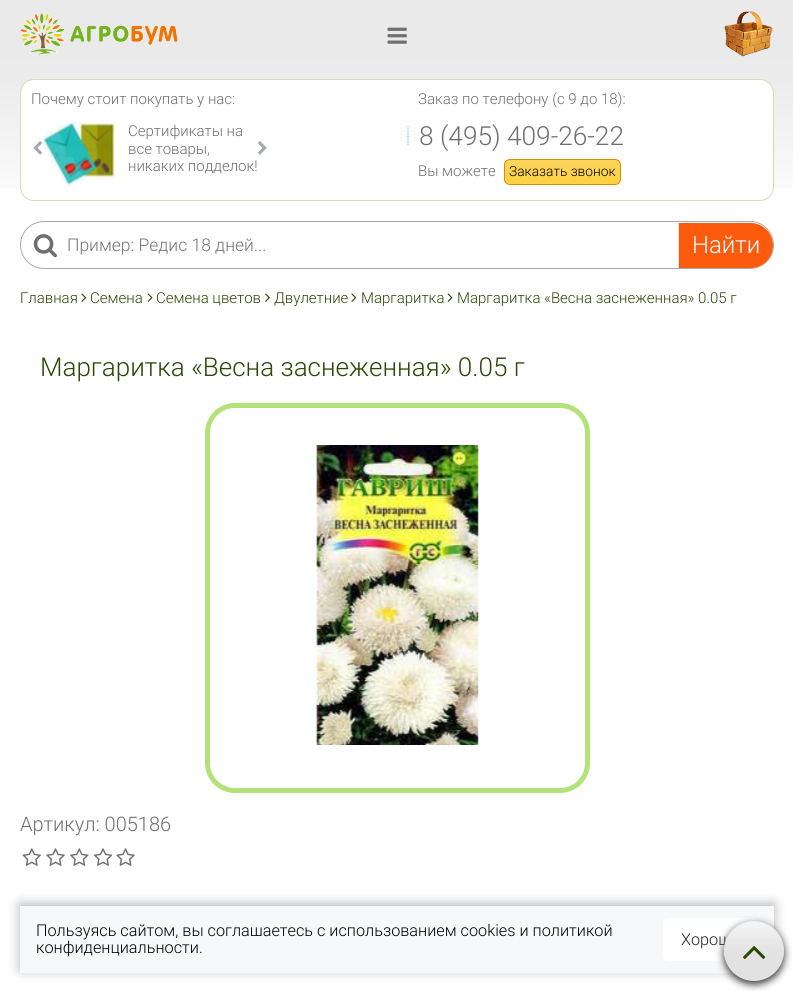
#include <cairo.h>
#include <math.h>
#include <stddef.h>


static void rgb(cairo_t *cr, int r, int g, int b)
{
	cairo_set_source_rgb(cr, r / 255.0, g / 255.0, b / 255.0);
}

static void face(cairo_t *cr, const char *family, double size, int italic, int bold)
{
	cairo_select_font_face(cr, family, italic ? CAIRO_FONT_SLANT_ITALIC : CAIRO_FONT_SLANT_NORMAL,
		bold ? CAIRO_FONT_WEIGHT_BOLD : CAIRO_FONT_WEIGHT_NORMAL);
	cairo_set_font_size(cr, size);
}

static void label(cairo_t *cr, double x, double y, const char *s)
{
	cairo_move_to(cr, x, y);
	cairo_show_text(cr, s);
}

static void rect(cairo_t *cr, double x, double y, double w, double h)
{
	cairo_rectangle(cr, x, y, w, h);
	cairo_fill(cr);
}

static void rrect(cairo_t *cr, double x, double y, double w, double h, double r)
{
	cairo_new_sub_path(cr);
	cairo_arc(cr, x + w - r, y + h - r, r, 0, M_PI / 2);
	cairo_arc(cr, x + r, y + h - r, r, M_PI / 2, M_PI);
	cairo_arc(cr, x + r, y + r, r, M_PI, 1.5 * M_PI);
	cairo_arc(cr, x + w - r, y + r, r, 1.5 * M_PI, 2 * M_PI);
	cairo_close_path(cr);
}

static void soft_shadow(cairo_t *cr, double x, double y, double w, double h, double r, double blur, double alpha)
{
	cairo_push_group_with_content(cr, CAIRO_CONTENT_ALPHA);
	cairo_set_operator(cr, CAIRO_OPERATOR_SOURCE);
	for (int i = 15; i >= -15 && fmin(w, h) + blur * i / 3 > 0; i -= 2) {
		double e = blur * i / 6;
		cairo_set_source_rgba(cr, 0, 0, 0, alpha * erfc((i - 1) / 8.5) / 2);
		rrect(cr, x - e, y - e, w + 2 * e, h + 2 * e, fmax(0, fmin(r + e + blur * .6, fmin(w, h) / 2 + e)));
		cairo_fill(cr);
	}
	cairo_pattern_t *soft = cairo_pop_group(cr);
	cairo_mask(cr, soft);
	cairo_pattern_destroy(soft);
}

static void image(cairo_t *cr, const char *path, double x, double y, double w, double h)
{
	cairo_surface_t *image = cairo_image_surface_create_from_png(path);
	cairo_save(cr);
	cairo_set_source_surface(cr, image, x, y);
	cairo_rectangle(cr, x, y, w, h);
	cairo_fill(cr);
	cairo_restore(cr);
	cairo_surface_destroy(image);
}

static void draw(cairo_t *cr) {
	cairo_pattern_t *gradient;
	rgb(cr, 255, 255, 255);
	cairo_paint(cr);
	rgb(cr, 234, 234, 234);
	rect(cr, 0, 0, 793, 59);
	image(cr, "image0.png", 20, 13, 158, 42);
	image(cr, "image1.png", 387, 27, 20, 17);
	image(cr, "image2.png", 724, 11, 49, 46);
	image(cr, "image3.png", 0, 59, 793, 129);
	rgb(cr, 255, 255, 255);
	rrect(cr, 20.5, 79.5, 753, 121, 13.5);
	cairo_fill_preserve(cr);
	rgb(cr, 219, 219, 180);
	cairo_set_line_width(cr, 1);
	cairo_stroke(cr);
	face(cr, "Roboto Light", 15, 0, 0);
	rgb(cr, 111, 111, 111);
	label(cr, 31, 104, "Почему стоит покупать у нас:");
	image(cr, "image4.png", 42, 118, 75, 69);
	label(cr, 128, 136, "Сертификаты на");
	label(cr, 128, 154, "все товары,");
	label(cr, 128, 171, "никаких подделок!");
	image(cr, "image5.png", 33, 141, 9, 14);
	image(cr, "image6.png", 258, 141, 9, 14);
	label(cr, 418, 104, "Заказ по телефону (c 9 до 18):");
	cairo_new_path(cr);
	cairo_move_to(cr, 408, 126);
	cairo_line_to(cr, 408, 146);
	rgb(cr, 143, 181, 214);
	cairo_set_line_width(cr, 1.2);
	cairo_set_dash(cr, (double[]){1.25, 1.25}, 2, 0);
	cairo_stroke(cr);
	face(cr, "Roboto Light", 26.25, 0, 0);
	rgb(cr, 111, 111, 111);
	label(cr, 419, 145, "8 (495) 409-26-22");
	face(cr, "Roboto Light", 15, 0, 0);
	label(cr, 418, 176, "Вы можете");
	cairo_save(cr);
	rrect(cr, 504, 159, 117, 26, 6);
	cairo_clip(cr);
	gradient = cairo_pattern_create_linear(563, 160, 563, 184);
	cairo_pattern_add_color_stop_rgba(gradient, 0, 0.984, 0.835, 0.357, 1);
	cairo_pattern_add_color_stop_rgba(gradient, 1, 1, 0.824, 0.259, 1);
	cairo_set_source(cr, gradient);
	cairo_pattern_destroy(gradient);
	rect(cr, 504, 160, 117, 24);
	cairo_restore(cr);
	rrect(cr, 504.5, 159.5, 116, 25, 5.5);
	rgb(cr, 222, 139, 8);
	cairo_set_line_width(cr, 1);
	cairo_set_dash(cr, NULL, 0, 0);
	cairo_stroke(cr);
	face(cr, "Roboto Light", 13.75, 0, 0);
	rgb(cr, 0, 0, 0);
	label(cr, 509, 176, "Заказать звонок");
	rrect(cr, 20.5, 221.5, 753, 47, 23.5);
	rgb(cr, 170, 170, 170);
	cairo_stroke(cr);
	image(cr, "image7.png", 33, 234, 24, 24);
	face(cr, "Roboto Light", 17.5, 0, 0);
	rgb(cr, 117, 117, 117);
	label(cr, 67, 251, "Пример: Редис 18 дней...");
	rgb(cr, 252, 90, 13);
	cairo_new_path(cr);
	cairo_move_to(cr, 678, 223);
	cairo_line_to(cr, 750.5, 223);
	cairo_curve_to(cr, 763, 223, 773, 233, 773, 245.5);
	cairo_curve_to(cr, 773, 258, 763, 268, 750.5, 268);
	cairo_line_to(cr, 678, 268);
	cairo_close_path(cr);
	cairo_fill(cr);
	rgb(cr, 226, 226, 226);
	rect(cr, 678, 223, 1, 45);
	face(cr, "Roboto Light", 24, 0, 0);
	rgb(cr, 255, 255, 255);
	label(cr, 692, 253, "Найти");
	face(cr, "Roboto Light", 15, 0, 0);
	rgb(cr, 43, 70, 5);
	label(cr, 20, 303, "Главная");
	image(cr, "image8.png", 81, 293, 6, 9);
	label(cr, 90, 303, "Семена");
	image(cr, "image9.png", 147, 293, 6, 9);
	label(cr, 156, 303, "Семена цветов");
	image(cr, "image10.png", 265, 293, 5, 9);
	label(cr, 274, 303, "Двулетние");
	image(cr, "image8.png", 351, 293, 6, 9);
	label(cr, 361, 303, "Маргаритка");
	image(cr, "image9.png", 447, 293, 6, 9);
	label(cr, 457, 303, "Маргаритка «Весна заснеженная» 0.05 г");
	face(cr, "Roboto Light", 26, 0, 0);
	label(cr, 40, 376, "Маргаритка «Весна заснеженная» 0.05 г");
	rrect(cr, 207.5, 405.5, 380, 385, 27.5);
	rgb(cr, 179, 225, 122);
	cairo_set_line_width(cr, 5);
	cairo_stroke(cr);
	image(cr, "image11.png", 316, 445, 163, 300);
	face(cr, "Roboto Light", 20, 0, 0);
	rgb(cr, 111, 111, 111);
	label(cr, 20, 831, "Артикул: 005186");
	image(cr, "image12.png", 22, 848, 19, 18);
	image(cr, "image13.png", 46, 848, 19, 18);
	image(cr, "image14.png", 70, 848, 19, 18);
	image(cr, "image15.png", 93, 848, 20, 18);
	image(cr, "image13.png", 116, 848, 19, 18);
	rgb(cr, 0, 0, 0);
	soft_shadow(cr, 20, 904, 754, 66, 0, 6, 0.3);
	rgb(cr, 247, 248, 250);
	rect(cr, 20, 906, 754, 67);
	face(cr, "Roboto Light", 16.25, 0, 0);
	rgb(cr, 0, 0, 0);
	label(cr, 36, 936, "Пользуясь сайтом, вы соглашаетесь с использованием cookies и политикой");
	label(cr, 36, 953, "конфиденциальности.");
	rgb(cr, 255, 255, 255);
	rrect(cr, 663, 918, 95, 43, 5);
	cairo_fill(cr);
	rgb(cr, 34, 34, 34);
	label(cr, 681, 945, "Хорош");
	rgb(cr, 51, 51, 51);
	soft_shadow(cr, 724, 924, 60, 60, 30, 4, 1);
	rgb(cr, 226, 226, 226);
	cairo_arc(cr, 754, 951, 30, 0, 2 * M_PI);
	cairo_fill(cr);
	image(cr, "image16.png", 723, 921, 61, 35);
	image(cr, "image17.png", 743, 946, 23, 13);
}

int main(void) {
	cairo_surface_t *surface = cairo_image_surface_create(CAIRO_FORMAT_RGB24, 793, 991);
	cairo_t *cr = cairo_create(surface);
	cairo_font_options_t *options = cairo_font_options_create();
	cairo_font_options_set_hint_metrics(options, CAIRO_HINT_METRICS_OFF);
	cairo_font_options_set_hint_style(options, CAIRO_HINT_STYLE_NONE);
	cairo_set_font_options(cr, options);
	cairo_set_miter_limit(cr, 4);
	draw(cr);
	cairo_surface_write_to_png(surface, "render.png");
	cairo_font_options_destroy(options);
	cairo_destroy(cr);
	cairo_surface_destroy(surface);
	return 0;
}
